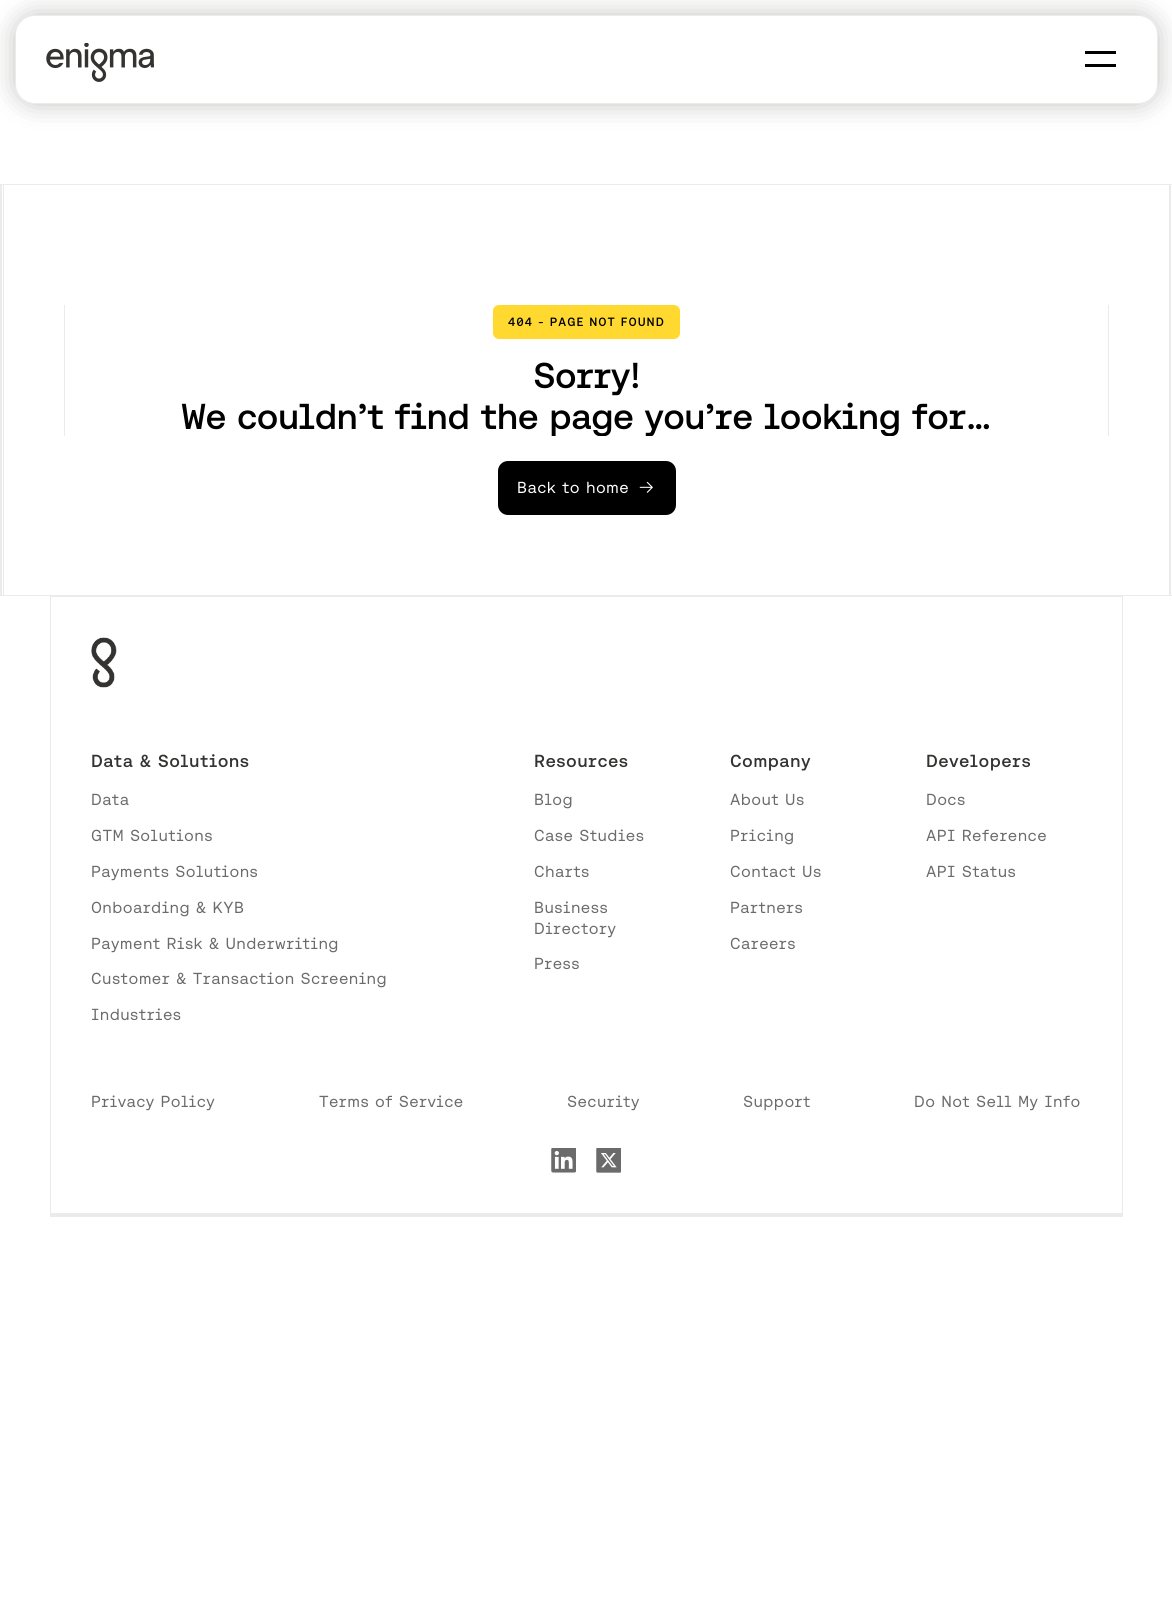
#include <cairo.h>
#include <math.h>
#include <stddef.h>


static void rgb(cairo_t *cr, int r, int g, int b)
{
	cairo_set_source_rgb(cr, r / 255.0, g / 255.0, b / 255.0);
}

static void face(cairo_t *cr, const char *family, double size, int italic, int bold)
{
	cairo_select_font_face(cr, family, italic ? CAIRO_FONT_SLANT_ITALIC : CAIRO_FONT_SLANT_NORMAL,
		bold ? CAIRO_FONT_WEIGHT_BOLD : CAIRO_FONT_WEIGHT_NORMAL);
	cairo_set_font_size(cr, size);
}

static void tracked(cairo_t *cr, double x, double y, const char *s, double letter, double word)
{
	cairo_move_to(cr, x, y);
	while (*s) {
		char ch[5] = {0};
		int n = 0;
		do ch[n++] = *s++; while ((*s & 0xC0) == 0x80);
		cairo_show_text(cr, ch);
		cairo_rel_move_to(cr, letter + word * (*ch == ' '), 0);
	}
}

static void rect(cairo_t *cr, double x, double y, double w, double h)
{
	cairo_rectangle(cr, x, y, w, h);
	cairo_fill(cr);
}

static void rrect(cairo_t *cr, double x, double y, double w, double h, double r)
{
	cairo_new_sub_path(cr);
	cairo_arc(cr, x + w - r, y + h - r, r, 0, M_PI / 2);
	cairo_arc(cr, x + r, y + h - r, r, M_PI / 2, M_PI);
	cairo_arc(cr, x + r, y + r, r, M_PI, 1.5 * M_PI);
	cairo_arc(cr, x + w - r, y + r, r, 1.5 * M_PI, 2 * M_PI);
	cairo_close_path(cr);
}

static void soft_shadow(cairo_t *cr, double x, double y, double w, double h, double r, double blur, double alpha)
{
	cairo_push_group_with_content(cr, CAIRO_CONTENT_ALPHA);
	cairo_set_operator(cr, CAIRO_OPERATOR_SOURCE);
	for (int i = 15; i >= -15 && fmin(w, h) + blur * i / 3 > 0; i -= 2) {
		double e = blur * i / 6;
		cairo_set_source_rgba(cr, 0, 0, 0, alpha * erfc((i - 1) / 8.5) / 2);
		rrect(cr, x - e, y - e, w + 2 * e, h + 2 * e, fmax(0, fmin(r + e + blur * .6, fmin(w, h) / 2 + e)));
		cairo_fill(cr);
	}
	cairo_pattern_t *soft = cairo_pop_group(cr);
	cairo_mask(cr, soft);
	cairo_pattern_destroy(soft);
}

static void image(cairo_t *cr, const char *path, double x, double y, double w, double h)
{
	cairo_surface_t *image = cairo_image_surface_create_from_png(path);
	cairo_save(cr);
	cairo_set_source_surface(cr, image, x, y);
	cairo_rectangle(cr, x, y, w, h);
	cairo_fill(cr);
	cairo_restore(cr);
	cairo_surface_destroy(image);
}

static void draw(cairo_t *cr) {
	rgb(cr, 255, 255, 255);
	cairo_paint(cr);
	rgb(cr, 52, 51, 50);
	soft_shadow(cr, 15, 15, 1143, 89, 20, 12.5, 0.3);
	rgb(cr, 255, 255, 255);
	rrect(cr, 15, 15, 1143, 89, 20);
	cairo_fill(cr);
	rrect(cr, 15.5, 15.5, 1142, 88, 19.5);
	cairo_set_source_rgba(cr, 0.204, 0.2, 0.196, 0.1);
	cairo_set_line_width(cr, 1);
	cairo_stroke(cr);
	image(cr, "image0.png", 46, 43, 108, 39);
	rgb(cr, 0, 0, 0);
	rect(cr, 1085, 51, 31, 3);
	rect(cr, 1085, 64, 31, 3);
	cairo_rectangle(cr, 0.5, 184.5, 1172, 411);
	rgb(cr, 235, 235, 235);
	cairo_stroke(cr);
	rect(cr, 1169, 185, 2, 410);
	rect(cr, 1, 185, 1, 410);
	rect(cr, 3, 185, 1, 410);
	rect(cr, 1108, 305, 1, 131);
	rect(cr, 64, 305, 1, 131);
	rgb(cr, 255, 217, 48);
	rrect(cr, 493, 305, 187, 34, 6);
	cairo_fill(cr);
	face(cr, "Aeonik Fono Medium", 12, 0, 0);
	rgb(cr, 0, 0, 0);
	tracked(cr, 508, 326, "404 - PAGE NOT FOUND", 1, 0);
	face(cr, "Aeonik Fono Medium", 36, 0, 0);
	tracked(cr, 533, 388, "Sorry!", -1, 0);
	cairo_save(cr);
	cairo_rectangle(cr, 65, 305, 1043, 131);
	cairo_clip(cr);
	tracked(cr, 181, 429, "We couldn’t find the page you’re looking for…", -1, 0);
	cairo_restore(cr);
	rrect(cr, 498, 461, 178, 54, 10);
	cairo_fill(cr);
	face(cr, "Aeonik Fono", 16, 0, 0);
	rgb(cr, 255, 255, 255);
	tracked(cr, 517, 493, "Back to home", 0.4, 0);
	image(cr, "image1.png", 639, 481, 14, 12);
	cairo_rectangle(cr, 50.5, 596.5, 1072, 617);
	rgb(cr, 235, 235, 235);
	cairo_stroke(cr);
	image(cr, "image2.png", 91, 637, 26, 51);
	face(cr, "Aeonik Fono Medium", 17.5, 0, 0);
	rgb(cr, 52, 51, 50);
	tracked(cr, 91, 767, "Data & Solutions", 0.4, 0);
	face(cr, "Aeonik Fono", 16, 0, 0);
	rgb(cr, 107, 107, 107);
	tracked(cr, 91, 805, "Data", 0.4, 0);
	tracked(cr, 91, 841, "GTM Solutions", 0.4, 0);
	tracked(cr, 91, 877, "Payments Solutions", 0.4, 0);
	tracked(cr, 91, 913, "Onboarding & KYB", 0.4, 0);
	tracked(cr, 91, 949, "Payment Risk & Underwriting", 0.4, 0);
	tracked(cr, 91, 984, "Customer & Transaction Screening", 0.4, 0);
	tracked(cr, 91, 1020, "Industries", 0.4, 0);
	face(cr, "Aeonik Fono Medium", 17.5, 0, 0);
	rgb(cr, 52, 51, 50);
	tracked(cr, 534, 767, "Resources", 0.4, 0);
	face(cr, "Aeonik Fono", 16, 0, 0);
	rgb(cr, 107, 107, 107);
	tracked(cr, 534, 805, "Blog", 0.4, 0);
	tracked(cr, 534, 841, "Case Studies", 0.4, 0);
	tracked(cr, 534, 877, "Charts", 0.4, 0);
	tracked(cr, 534, 913, "Business", 0.4, 0);
	tracked(cr, 534, 934, "Directory", 0.4, 0);
	tracked(cr, 534, 969, "Press", 0.4, 0);
	face(cr, "Aeonik Fono Medium", 17.5, 0, 0);
	rgb(cr, 52, 51, 50);
	tracked(cr, 730, 767, "Company", 0.4, 0);
	face(cr, "Aeonik Fono", 16, 0, 0);
	rgb(cr, 107, 107, 107);
	tracked(cr, 730, 805, "About Us", 0.4, 0);
	tracked(cr, 730, 841, "Pricing", 0.4, 0);
	tracked(cr, 730, 877, "Contact Us", 0.4, 0);
	tracked(cr, 730, 913, "Partners", 0.4, 0);
	tracked(cr, 730, 949, "Careers", 0.4, 0);
	face(cr, "Aeonik Fono Medium", 17.5, 0, 0);
	rgb(cr, 52, 51, 50);
	tracked(cr, 926, 767, "Developers", 0.4, 0);
	face(cr, "Aeonik Fono", 16, 0, 0);
	rgb(cr, 107, 107, 107);
	tracked(cr, 926, 805, "Docs", 0.4, 0);
	tracked(cr, 926, 841, "API Reference", 0.4, 0);
	tracked(cr, 926, 877, "API Status", 0.4, 0);
	tracked(cr, 91, 1107, "Privacy Policy", 0.4, 0);
	tracked(cr, 319, 1107, "Terms of Service", 0.4, 0);
	tracked(cr, 567, 1107, "Security", 0.4, 0);
	tracked(cr, 743, 1107, "Support", 0.4, 0);
	tracked(cr, 914, 1107, "Do Not Sell My Info", 0.4, 0);
	image(cr, "image3.png", 551, 1148, 25, 25);
	image(cr, "image4.png", 596, 1148, 25, 25);
	rgb(cr, 235, 235, 235);
	rect(cr, 50, 1214, 1073, 3);
}

int main(void) {
	cairo_surface_t *surface = cairo_image_surface_create(CAIRO_FORMAT_RGB24, 1172, 1615);
	cairo_t *cr = cairo_create(surface);
	cairo_font_options_t *options = cairo_font_options_create();
	cairo_font_options_set_hint_metrics(options, CAIRO_HINT_METRICS_OFF);
	cairo_font_options_set_hint_style(options, CAIRO_HINT_STYLE_NONE);
	cairo_set_font_options(cr, options);
	cairo_set_miter_limit(cr, 4);
	draw(cr);
	cairo_surface_write_to_png(surface, "render.png");
	cairo_font_options_destroy(options);
	cairo_destroy(cr);
	cairo_surface_destroy(surface);
	return 0;
}
